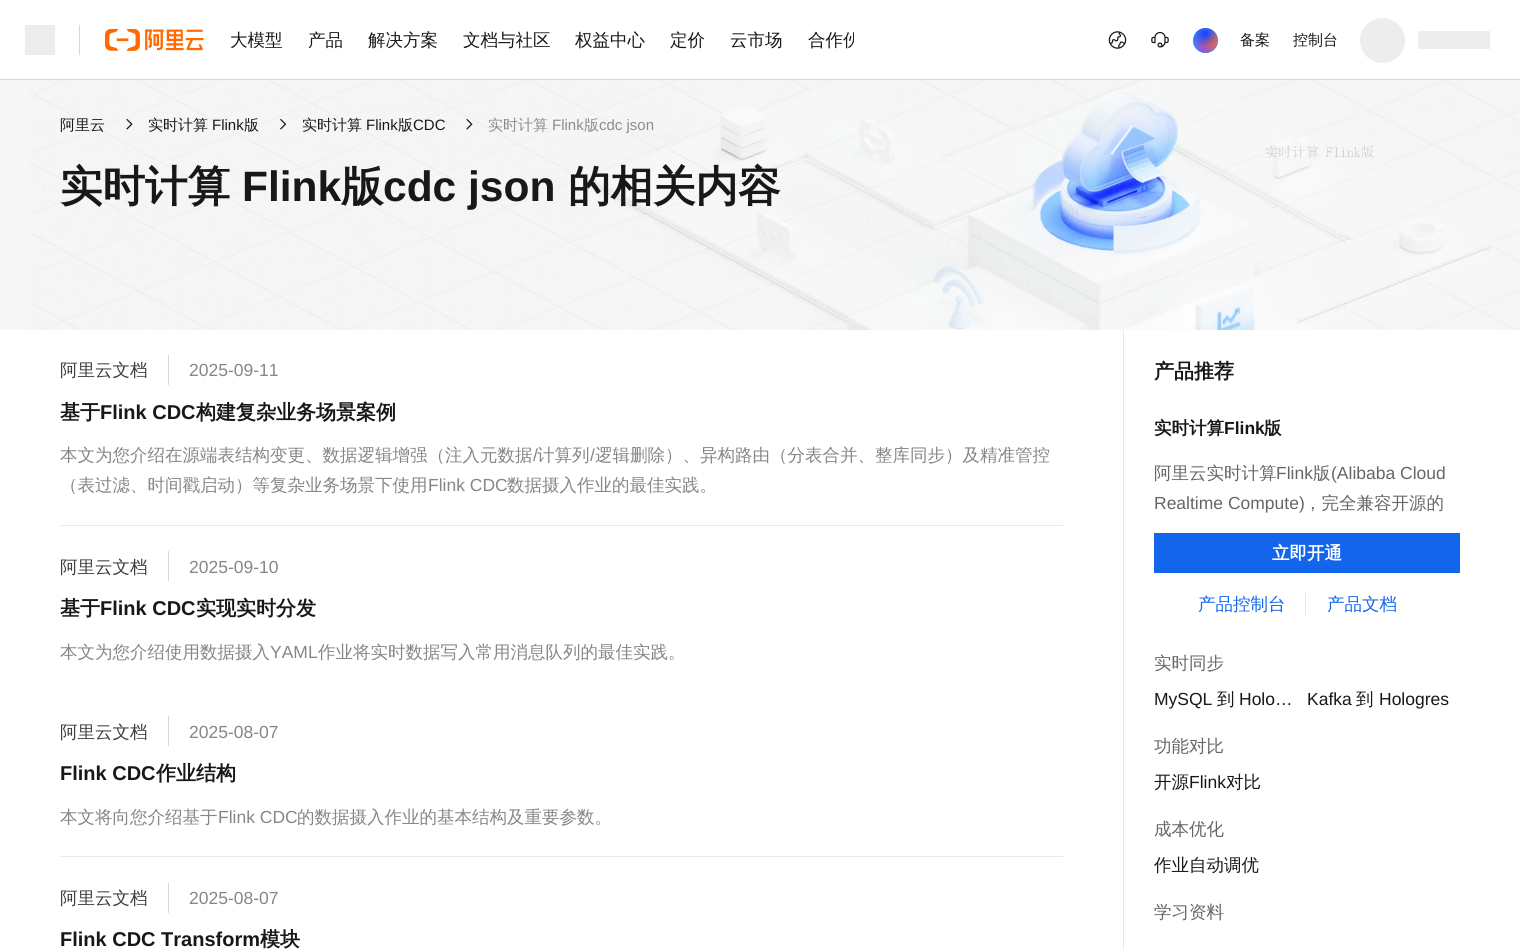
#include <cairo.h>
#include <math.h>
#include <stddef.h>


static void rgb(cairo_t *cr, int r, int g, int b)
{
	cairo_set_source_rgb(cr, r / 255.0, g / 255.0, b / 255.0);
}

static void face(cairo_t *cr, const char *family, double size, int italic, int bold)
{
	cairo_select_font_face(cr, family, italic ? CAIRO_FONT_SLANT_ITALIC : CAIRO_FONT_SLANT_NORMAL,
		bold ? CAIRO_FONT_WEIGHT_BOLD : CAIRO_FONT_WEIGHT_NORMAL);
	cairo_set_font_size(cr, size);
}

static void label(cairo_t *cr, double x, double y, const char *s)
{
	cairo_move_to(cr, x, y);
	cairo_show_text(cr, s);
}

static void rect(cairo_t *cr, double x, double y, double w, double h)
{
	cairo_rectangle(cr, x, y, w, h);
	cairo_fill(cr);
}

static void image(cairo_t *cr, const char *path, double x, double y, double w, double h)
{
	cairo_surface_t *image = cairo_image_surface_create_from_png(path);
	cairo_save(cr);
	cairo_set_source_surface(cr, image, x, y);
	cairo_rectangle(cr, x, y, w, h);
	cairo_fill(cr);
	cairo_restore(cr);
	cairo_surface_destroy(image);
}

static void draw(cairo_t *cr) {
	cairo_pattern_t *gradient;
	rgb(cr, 255, 255, 255);
	cairo_paint(cr);
	rgb(cr, 215, 216, 217);
	rect(cr, 0, 79, 1520, 1);
	rgb(cr, 237, 237, 237);
	rect(cr, 25, 25, 30, 30);
	rgb(cr, 216, 216, 216);
	rect(cr, 79, 25, 1, 30);
	image(cr, "image0.png", 105, 29, 99, 22);
	face(cr, "WenQuanYi Zen Hei Medium", 17.5, 0, 0);
	rgb(cr, 24, 24, 24);
	label(cr, 230, 46, "大模型");
	label(cr, 308, 46, "产品");
	label(cr, 368, 46, "解决方案");
	label(cr, 463, 46, "文档与社区");
	label(cr, 575, 46, "权益中心");
	label(cr, 670, 46, "定价");
	label(cr, 730, 46, "云市场");
	cairo_save(cr);
	cairo_rectangle(cr, 218, 0, 636, 80);
	cairo_clip(cr);
	label(cr, 808, 46, "合作伙");
	cairo_restore(cr);
	image(cr, "image1.png", 1108, 31, 19, 18);
	image(cr, "image2.png", 1151, 31, 18, 17);
	rgb(cr, 37, 165, 255);
	cairo_arc(cr, 1205.5, 40.5, 12.5, 0, 2 * M_PI);
	cairo_fill(cr);
	gradient = cairo_pattern_create_radial(1205, 46, 0, 1205, 46, 23);
	cairo_pattern_add_color_stop_rgba(gradient, 0.05, 0.482, 0.278, 1, 1);
	cairo_pattern_add_color_stop_rgba(gradient, 0.8, 0.482, 0.278, 1, 0);
	cairo_set_source(cr, gradient);
	cairo_pattern_destroy(gradient);
	cairo_arc(cr, 1205.5, 40.5, 12.5, 0, 2 * M_PI);
	cairo_fill(cr);
	gradient = cairo_pattern_create_radial(1211, 40, 0, 1211, 40, 23);
	cairo_pattern_add_color_stop_rgba(gradient, 0.05, 1, 0.392, 0.196, 1);
	cairo_pattern_add_color_stop_rgba(gradient, 0.7, 1, 0.392, 0.196, 0);
	cairo_set_source(cr, gradient);
	cairo_pattern_destroy(gradient);
	cairo_arc(cr, 1205.5, 40.5, 12.5, 0, 2 * M_PI);
	cairo_fill(cr);
	gradient = cairo_pattern_create_radial(1205, 34, 0, 1205, 34, 23);
	cairo_pattern_add_color_stop_rgba(gradient, 0.05, 0.082, 0.282, 1, 1);
	cairo_pattern_add_color_stop_rgba(gradient, 0.6, 0.082, 0.282, 1, 0);
	cairo_set_source(cr, gradient);
	cairo_pattern_destroy(gradient);
	cairo_arc(cr, 1205.5, 40.5, 12.5, 0, 2 * M_PI);
	cairo_fill(cr);
	face(cr, "WenQuanYi Zen Hei Medium", 15, 0, 0);
	rgb(cr, 24, 24, 24);
	label(cr, 1240, 45, "备案");
	label(cr, 1293, 45, "控制台");
	rgb(cr, 237, 237, 237);
	cairo_new_path(cr);
	cairo_arc(cr, 1382.5, 40.5, 22.5, 0, 2 * M_PI);
	cairo_fill(cr);
	rect(cr, 1418, 31, 72, 18);
	rgb(cr, 246, 246, 246);
	rect(cr, 0, 80, 30, 250);
	image(cr, "image3.png", 30, 80, 1490, 250);
	rgb(cr, 24, 24, 24);
	label(cr, 60, 130, "阿里云");
	image(cr, "image4.png", 126, 119, 7, 11);
	label(cr, 148, 130, "实时计算");
	face(cr, "Liberation Sans", 15, 0, 0);
	label(cr, 212, 130, "Flink");
	face(cr, "WenQuanYi Zen Hei Medium", 15, 0, 0);
	label(cr, 244, 130, "版");
	image(cr, "image5.png", 280, 119, 6, 11);
	label(cr, 302, 130, "实时计算");
	face(cr, "Liberation Sans", 15, 0, 0);
	label(cr, 366, 130, "Flink");
	face(cr, "WenQuanYi Zen Hei Medium", 15, 0, 0);
	label(cr, 398, 130, "版");
	face(cr, "Liberation Sans", 15, 0, 0);
	label(cr, 413, 130, "CDC");
	image(cr, "image6.png", 466, 119, 7, 11);
	face(cr, "WenQuanYi Zen Hei Medium", 15, 0, 0);
	rgb(cr, 140, 140, 140);
	label(cr, 488, 130, "实时计算");
	face(cr, "Liberation Sans", 15, 0, 0);
	label(cr, 552, 130, "Flink");
	face(cr, "WenQuanYi Zen Hei Medium", 15, 0, 0);
	label(cr, 584, 130, "版");
	face(cr, "Liberation Sans", 15, 0, 0);
	label(cr, 599, 130, "cdc json");
	face(cr, "WenQuanYi Zen Hei", 42.5, 0, 1);
	rgb(cr, 24, 24, 24);
	label(cr, 60, 201, "实时计算");
	face(cr, "Liberation Sans", 42.5, 0, 1);
	label(cr, 242, 201, "Flink");
	face(cr, "WenQuanYi Zen Hei", 42.5, 0, 1);
	label(cr, 341, 201, "版");
	face(cr, "Liberation Sans", 42.5, 0, 1);
	label(cr, 383, 201, "cdc json");
	face(cr, "WenQuanYi Zen Hei", 42.5, 0, 1);
	label(cr, 568, 201, "的相关内容");
	image(cr, "image7.png", 1265, 145, 109, 13);
	rgb(cr, 233, 233, 233);
	rect(cr, 1123, 330, 1, 620);
	rect(cr, 60, 525, 1003, 1);
	rgb(cr, 215, 216, 217);
	rect(cr, 168, 355, 1, 30);
	face(cr, "WenQuanYi Zen Hei Medium", 17.5, 0, 0);
	rgb(cr, 61, 61, 61);
	label(cr, 60, 376, "阿里云文档");
	face(cr, "Liberation Sans", 17.5, 0, 0);
	rgb(cr, 134, 134, 134);
	label(cr, 189, 376, "2025-09-11");
	face(cr, "WenQuanYi Zen Hei", 20, 0, 1);
	rgb(cr, 24, 24, 24);
	label(cr, 60, 419, "基于");
	face(cr, "Liberation Sans", 20, 0, 1);
	label(cr, 100, 419, "Flink CDC");
	face(cr, "WenQuanYi Zen Hei", 20, 0, 1);
	label(cr, 196, 419, "构建复杂业务场景案例");
	face(cr, "WenQuanYi Zen Hei Medium", 17.5, 0, 0);
	rgb(cr, 134, 134, 134);
	label(cr, 60, 461, "本文为您介绍在源端表结构变更、数据逻辑增强（注入元数据");
	face(cr, "Liberation Sans", 17.5, 0, 0);
	label(cr, 533, 461, "/");
	face(cr, "WenQuanYi Zen Hei Medium", 17.5, 0, 0);
	label(cr, 537, 461, "计算列");
	face(cr, "Liberation Sans", 17.5, 0, 0);
	label(cr, 590, 461, "/");
	face(cr, "WenQuanYi Zen Hei Medium", 17.5, 0, 0);
	label(cr, 595, 461, "逻辑删除）、异构路由（分表合并、整库同步）及精准管控");
	label(cr, 60, 491, "（表过滤、时间戳启动）等复杂业务场景下使用");
	face(cr, "Liberation Sans", 17.5, 0, 0);
	label(cr, 428, 491, "Flink CDC");
	face(cr, "WenQuanYi Zen Hei Medium", 17.5, 0, 0);
	label(cr, 507, 491, "数据摄入作业的最佳实践。");
	rgb(cr, 215, 216, 217);
	rect(cr, 168, 551, 1, 30);
	rgb(cr, 61, 61, 61);
	label(cr, 60, 573, "阿里云文档");
	face(cr, "Liberation Sans", 17.5, 0, 0);
	rgb(cr, 134, 134, 134);
	label(cr, 189, 573, "2025-09-10");
	face(cr, "WenQuanYi Zen Hei", 20, 0, 1);
	rgb(cr, 24, 24, 24);
	label(cr, 60, 615, "基于");
	face(cr, "Liberation Sans", 20, 0, 1);
	label(cr, 100, 615, "Flink CDC");
	face(cr, "WenQuanYi Zen Hei", 20, 0, 1);
	label(cr, 196, 615, "实现实时分发");
	face(cr, "WenQuanYi Zen Hei Medium", 17.5, 0, 0);
	rgb(cr, 134, 134, 134);
	label(cr, 60, 658, "本文为您介绍使用数据摄入");
	face(cr, "Liberation Sans", 17.5, 0, 0);
	label(cr, 270, 658, "YAML");
	face(cr, "WenQuanYi Zen Hei Medium", 17.5, 0, 0);
	label(cr, 318, 658, "作业将实时数据写入常用消息队列的最佳实践。");
	rgb(cr, 233, 233, 233);
	rect(cr, 60, 856, 1003, 1);
	rgb(cr, 215, 216, 217);
	rect(cr, 168, 716, 1, 30);
	rgb(cr, 61, 61, 61);
	label(cr, 60, 738, "阿里云文档");
	face(cr, "Liberation Sans", 17.5, 0, 0);
	rgb(cr, 134, 134, 134);
	label(cr, 189, 738, "2025-08-07");
	face(cr, "Liberation Sans", 20, 0, 1);
	rgb(cr, 24, 24, 24);
	label(cr, 60, 780, "Flink CDC");
	face(cr, "WenQuanYi Zen Hei", 20, 0, 1);
	label(cr, 156, 780, "作业结构");
	face(cr, "WenQuanYi Zen Hei Medium", 17.5, 0, 0);
	rgb(cr, 134, 134, 134);
	label(cr, 60, 823, "本文将向您介绍基于");
	face(cr, "Liberation Sans", 17.5, 0, 0);
	label(cr, 218, 823, "Flink CDC");
	face(cr, "WenQuanYi Zen Hei Medium", 17.5, 0, 0);
	label(cr, 297, 823, "的数据摄入作业的基本结构及重要参数。");
	rgb(cr, 215, 216, 217);
	rect(cr, 168, 883, 1, 30);
	rgb(cr, 61, 61, 61);
	label(cr, 60, 904, "阿里云文档");
	face(cr, "Liberation Sans", 17.5, 0, 0);
	rgb(cr, 134, 134, 134);
	label(cr, 189, 904, "2025-08-07");
	face(cr, "Liberation Sans", 20, 0, 1);
	rgb(cr, 24, 24, 24);
	label(cr, 60, 946, "Flink CDC Transform");
	face(cr, "WenQuanYi Zen Hei", 20, 0, 1);
	label(cr, 260, 946, "模块");
	label(cr, 1154, 378, "产品推荐");
	face(cr, "WenQuanYi Zen Hei", 17.5, 0, 1);
	label(cr, 1154, 434, "实时计算");
	face(cr, "Liberation Sans", 17.5, 0, 1);
	label(cr, 1224, 434, "Flink");
	face(cr, "WenQuanYi Zen Hei", 17.5, 0, 1);
	label(cr, 1264, 434, "版");
	face(cr, "WenQuanYi Zen Hei Medium", 17.5, 0, 0);
	rgb(cr, 102, 102, 102);
	label(cr, 1154, 479, "阿里云实时计算");
	face(cr, "Liberation Sans", 17.5, 0, 0);
	label(cr, 1276, 479, "Flink");
	face(cr, "WenQuanYi Zen Hei Medium", 17.5, 0, 0);
	label(cr, 1313, 479, "版");
	face(cr, "Liberation Sans", 17.5, 0, 0);
	label(cr, 1331, 479, "(Alibaba Cloud");
	label(cr, 1154, 509, "Realtime Compute)");
	face(cr, "WenQuanYi Zen Hei Medium", 17.5, 0, 0);
	label(cr, 1304, 509, "，完全兼容开源的");
	rgb(cr, 19, 102, 236);
	rect(cr, 1154, 533, 306, 40);
	face(cr, "WenQuanYi Zen Hei", 17.5, 0, 1);
	rgb(cr, 255, 255, 255);
	label(cr, 1272, 559, "立即开通");
	rgb(cr, 233, 233, 233);
	rect(cr, 1305, 593, 1, 22);
	face(cr, "WenQuanYi Zen Hei Medium", 17.5, 0, 0);
	rgb(cr, 19, 102, 236);
	label(cr, 1198, 610, "产品控制台");
	label(cr, 1327, 610, "产品文档");
	rgb(cr, 102, 102, 102);
	label(cr, 1154, 669, "实时同步");
	face(cr, "Liberation Sans", 17.5, 0, 0);
	rgb(cr, 24, 24, 24);
	label(cr, 1154, 705, "MySQL");
	face(cr, "WenQuanYi Zen Hei Medium", 17.5, 0, 0);
	label(cr, 1217, 705, "到");
	face(cr, "Liberation Sans", 17.5, 0, 0);
	label(cr, 1239, 705, "Holo…");
	label(cr, 1307, 705, "Kafka");
	face(cr, "WenQuanYi Zen Hei Medium", 17.5, 0, 0);
	label(cr, 1356, 705, "到");
	face(cr, "Liberation Sans", 17.5, 0, 0);
	label(cr, 1379, 705, "Hologres");
	face(cr, "WenQuanYi Zen Hei Medium", 17.5, 0, 0);
	rgb(cr, 102, 102, 102);
	label(cr, 1154, 752, "功能对比");
	rgb(cr, 24, 24, 24);
	label(cr, 1154, 788, "开源");
	face(cr, "Liberation Sans", 17.5, 0, 0);
	label(cr, 1189, 788, "Flink");
	face(cr, "WenQuanYi Zen Hei Medium", 17.5, 0, 0);
	label(cr, 1226, 788, "对比");
	rgb(cr, 102, 102, 102);
	label(cr, 1154, 835, "成本优化");
	rgb(cr, 24, 24, 24);
	label(cr, 1154, 871, "作业自动调优");
	rgb(cr, 102, 102, 102);
	label(cr, 1154, 918, "学习资料");
}

int main(void) {
	cairo_surface_t *surface = cairo_image_surface_create(CAIRO_FORMAT_RGB24, 1520, 950);
	cairo_t *cr = cairo_create(surface);
	cairo_font_options_t *options = cairo_font_options_create();
	cairo_font_options_set_hint_metrics(options, CAIRO_HINT_METRICS_OFF);
	cairo_font_options_set_hint_style(options, CAIRO_HINT_STYLE_NONE);
	cairo_set_font_options(cr, options);
	cairo_set_miter_limit(cr, 4);
	draw(cr);
	cairo_surface_write_to_png(surface, "render.png");
	cairo_font_options_destroy(options);
	cairo_destroy(cr);
	cairo_surface_destroy(surface);
	return 0;
}
